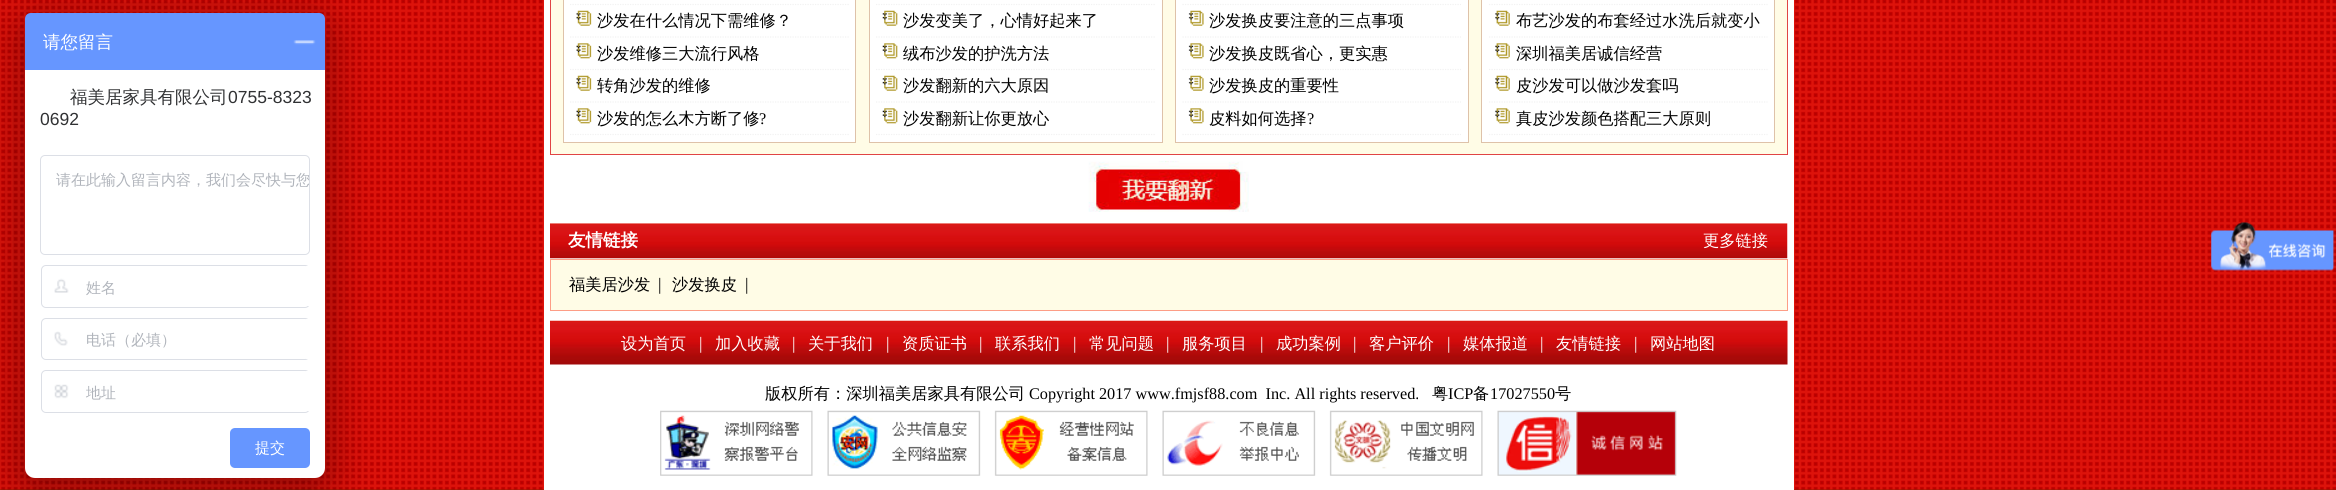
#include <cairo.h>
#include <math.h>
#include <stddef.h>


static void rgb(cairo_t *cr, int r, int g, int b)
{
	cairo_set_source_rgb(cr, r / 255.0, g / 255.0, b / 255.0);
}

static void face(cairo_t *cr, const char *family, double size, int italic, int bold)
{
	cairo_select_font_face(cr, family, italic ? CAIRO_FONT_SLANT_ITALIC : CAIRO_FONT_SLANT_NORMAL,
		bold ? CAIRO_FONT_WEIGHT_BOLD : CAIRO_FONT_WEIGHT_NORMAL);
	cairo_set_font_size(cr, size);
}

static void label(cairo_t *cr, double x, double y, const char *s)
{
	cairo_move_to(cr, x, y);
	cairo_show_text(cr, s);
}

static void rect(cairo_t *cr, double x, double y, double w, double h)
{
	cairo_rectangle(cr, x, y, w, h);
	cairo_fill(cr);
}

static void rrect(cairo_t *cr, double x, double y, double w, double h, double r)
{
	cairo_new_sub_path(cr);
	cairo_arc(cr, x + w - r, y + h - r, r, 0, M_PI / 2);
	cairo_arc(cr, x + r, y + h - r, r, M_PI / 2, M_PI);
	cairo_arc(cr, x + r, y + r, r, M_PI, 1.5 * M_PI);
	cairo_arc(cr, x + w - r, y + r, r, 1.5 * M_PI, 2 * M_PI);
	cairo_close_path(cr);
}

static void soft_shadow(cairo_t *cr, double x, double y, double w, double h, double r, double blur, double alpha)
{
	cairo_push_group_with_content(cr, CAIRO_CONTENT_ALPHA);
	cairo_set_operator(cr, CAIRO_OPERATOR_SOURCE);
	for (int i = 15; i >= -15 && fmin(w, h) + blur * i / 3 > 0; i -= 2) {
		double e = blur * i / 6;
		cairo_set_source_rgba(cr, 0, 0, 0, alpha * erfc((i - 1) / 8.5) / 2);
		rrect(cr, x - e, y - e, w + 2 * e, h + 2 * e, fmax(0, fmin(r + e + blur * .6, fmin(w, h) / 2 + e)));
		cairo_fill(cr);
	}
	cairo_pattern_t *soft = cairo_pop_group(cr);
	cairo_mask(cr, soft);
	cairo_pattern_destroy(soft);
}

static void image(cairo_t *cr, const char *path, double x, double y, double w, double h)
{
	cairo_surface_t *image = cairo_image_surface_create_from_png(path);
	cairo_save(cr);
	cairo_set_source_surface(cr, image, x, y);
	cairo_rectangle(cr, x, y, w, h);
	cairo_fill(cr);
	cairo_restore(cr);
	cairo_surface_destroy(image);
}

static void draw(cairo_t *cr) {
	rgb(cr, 141, 36, 4);
	cairo_paint(cr);
	image(cr, "image0.png", 0, 0, 2336, 490);
	rgb(cr, 255, 255, 255);
	rect(cr, 544, 0, 1250, 490);
	image(cr, "image1.png", 1078, 161, 180, 51);
	rgb(cr, 0, 0, 0);
	soft_shadow(cr, 25, 23, 300, 465, 10, 25, 0.4);
	rgb(cr, 255, 255, 255);
	rrect(cr, 25, 13, 300, 465, 10);
	cairo_fill(cr);
	rgb(cr, 102, 150, 255);
	cairo_new_path(cr);
	cairo_move_to(cr, 31, 13);
	cairo_line_to(cr, 319, 13);
	cairo_curve_to(cr, 322.5, 13, 325, 15.5, 325, 19);
	cairo_line_to(cr, 325, 70);
	cairo_line_to(cr, 25, 70);
	cairo_line_to(cr, 25, 19);
	cairo_curve_to(cr, 25, 15.5, 27.5, 13, 31, 13);
	cairo_close_path(cr);
	cairo_fill(cr);
	face(cr, "WenQuanYi Zen Hei Medium", 17.5, 0, 0);
	rgb(cr, 255, 255, 255);
	label(cr, 43, 48, "请您留言");
	image(cr, "image2.png", 293, 40, 23, 5);
	rgb(cr, 48, 49, 51);
	label(cr, 70, 103, "福美居家具有限公司");
	face(cr, "Liberation Sans", 17.5, 0, 0);
	label(cr, 228, 103, "0755-8323");
	label(cr, 40, 125, "0692");
	rrect(cr, 40.5, 155.5, 269, 99, 4.5);
	rgb(cr, 220, 223, 230);
	cairo_set_line_width(cr, 1);
	cairo_stroke(cr);
	cairo_save(cr);
	rrect(cr, 41, 156, 268, 98, 4);
	cairo_clip(cr);
	face(cr, "WenQuanYi Zen Hei Medium", 15, 0, 0);
	rgb(cr, 176, 180, 187);
	label(cr, 56, 185, "请在此输入留言内容，我们会尽快与您");
	cairo_restore(cr);
	rrect(cr, 41.5, 265.5, 268, 42, 4.5);
	cairo_stroke(cr);
	image(cr, "image3.png", 54, 278, 15, 15);
	rgb(cr, 255, 255, 255);
	rect(cr, 306, 266, 4, 40);
	face(cr, "WenQuanYi Zen Hei Medium", 15, 0, 0);
	rgb(cr, 176, 180, 187);
	label(cr, 86, 293, "姓名");
	rrect(cr, 41.5, 318.5, 268, 41, 4.5);
	rgb(cr, 220, 223, 230);
	cairo_stroke(cr);
	image(cr, "image4.png", 54, 331, 14, 15);
	rgb(cr, 255, 255, 255);
	rect(cr, 306, 319, 4, 40);
	rgb(cr, 176, 180, 187);
	label(cr, 86, 345, "电话（必填）");
	rrect(cr, 41.5, 370.5, 268, 42, 4.5);
	rgb(cr, 220, 223, 230);
	cairo_stroke(cr);
	image(cr, "image5.png", 54, 384, 15, 15);
	rgb(cr, 255, 255, 255);
	rect(cr, 306, 371, 4, 40);
	rgb(cr, 176, 180, 187);
	label(cr, 86, 398, "地址");
	rgb(cr, 102, 150, 255);
	rrect(cr, 230, 428, 80, 40, 5);
	cairo_fill(cr);
	rgb(cr, 255, 255, 255);
	label(cr, 255, 453, "提交");
	image(cr, "image6.png", 2211, 221, 124, 50);
	rgb(cr, 255, 252, 230);
	cairo_rectangle(cr, 550.5, -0.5, 1237, 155);
	cairo_fill_preserve(cr);
	rgb(cr, 224, 68, 68);
	cairo_stroke(cr);
	rgb(cr, 255, 255, 255);
	cairo_rectangle(cr, 563.5, -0.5, 292, 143);
	cairo_fill_preserve(cr);
	rgb(cr, 222, 194, 169);
	cairo_stroke(cr);
	cairo_new_path(cr);
	cairo_move_to(cr, 570, 4.5);
	cairo_line_to(cr, 849, 4.5);
	rgb(cr, 242, 242, 242);
	cairo_set_line_width(cr, 1.2);
	cairo_set_dash(cr, (double[]){1.25, 1.25}, 2, 0);
	cairo_stroke(cr);
	image(cr, "image7.png", 576, 10, 16, 16);
	cairo_new_path(cr);
	cairo_move_to(cr, 570, 37);
	cairo_line_to(cr, 849, 37);
	cairo_stroke(cr);
	face(cr, "WenQuanYi Zen Hei Medium", 16.25, 0, 0);
	rgb(cr, 0, 0, 0);
	label(cr, 597, 26, "沙发在什么情况下需维修？");
	image(cr, "image8.png", 576, 43, 16, 16);
	cairo_new_path(cr);
	cairo_move_to(cr, 570, 69.5);
	cairo_line_to(cr, 849, 69.5);
	rgb(cr, 242, 242, 242);
	cairo_stroke(cr);
	rgb(cr, 0, 0, 0);
	label(cr, 597, 59, "沙发维修三大流行风格");
	image(cr, "image7.png", 576, 75, 16, 16);
	cairo_new_path(cr);
	cairo_move_to(cr, 570, 102);
	cairo_line_to(cr, 849, 102);
	rgb(cr, 242, 242, 242);
	cairo_stroke(cr);
	rgb(cr, 0, 0, 0);
	label(cr, 597, 91, "转角沙发的维修");
	image(cr, "image8.png", 576, 108, 16, 16);
	cairo_new_path(cr);
	cairo_move_to(cr, 570, 134.5);
	cairo_line_to(cr, 849, 134.5);
	rgb(cr, 242, 242, 242);
	cairo_stroke(cr);
	rgb(cr, 0, 0, 0);
	label(cr, 597, 124, "沙发的怎么木方断了修");
	face(cr, "Liberation Serif", 16.25, 0, 0);
	label(cr, 759, 124, "?");
	rgb(cr, 255, 255, 255);
	cairo_rectangle(cr, 869.5, -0.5, 293, 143);
	cairo_fill_preserve(cr);
	rgb(cr, 222, 194, 169);
	cairo_set_line_width(cr, 1);
	cairo_set_dash(cr, NULL, 0, 0);
	cairo_stroke(cr);
	cairo_new_path(cr);
	cairo_move_to(cr, 876, 4.5);
	cairo_line_to(cr, 1155, 4.5);
	rgb(cr, 242, 242, 242);
	cairo_set_line_width(cr, 1.2);
	cairo_set_dash(cr, (double[]){1.25, 1.25}, 2, 0);
	cairo_stroke(cr);
	image(cr, "image9.png", 882, 10, 16, 16);
	cairo_new_path(cr);
	cairo_move_to(cr, 876, 37);
	cairo_line_to(cr, 1155, 37);
	cairo_stroke(cr);
	face(cr, "WenQuanYi Zen Hei Medium", 16.25, 0, 0);
	rgb(cr, 0, 0, 0);
	label(cr, 903, 26, "沙发变美了，心情好起来了");
	image(cr, "image10.png", 882, 43, 16, 16);
	cairo_new_path(cr);
	cairo_move_to(cr, 876, 69.5);
	cairo_line_to(cr, 1155, 69.5);
	rgb(cr, 242, 242, 242);
	cairo_stroke(cr);
	rgb(cr, 0, 0, 0);
	label(cr, 903, 59, "绒布沙发的护洗方法");
	image(cr, "image9.png", 882, 75, 16, 16);
	cairo_new_path(cr);
	cairo_move_to(cr, 876, 102);
	cairo_line_to(cr, 1155, 102);
	rgb(cr, 242, 242, 242);
	cairo_stroke(cr);
	rgb(cr, 0, 0, 0);
	label(cr, 903, 91, "沙发翻新的六大原因");
	image(cr, "image10.png", 882, 108, 16, 16);
	cairo_new_path(cr);
	cairo_move_to(cr, 876, 134.5);
	cairo_line_to(cr, 1155, 134.5);
	rgb(cr, 242, 242, 242);
	cairo_stroke(cr);
	rgb(cr, 0, 0, 0);
	label(cr, 903, 124, "沙发翻新让你更放心");
	rgb(cr, 255, 255, 255);
	cairo_rectangle(cr, 1175.5, -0.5, 293, 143);
	cairo_fill_preserve(cr);
	rgb(cr, 222, 194, 169);
	cairo_set_line_width(cr, 1);
	cairo_set_dash(cr, NULL, 0, 0);
	cairo_stroke(cr);
	cairo_new_path(cr);
	cairo_move_to(cr, 1182.5, 4.5);
	cairo_line_to(cr, 1461, 4.5);
	rgb(cr, 242, 242, 242);
	cairo_set_line_width(cr, 1.2);
	cairo_set_dash(cr, (double[]){1.25, 1.25}, 2, 0);
	cairo_stroke(cr);
	image(cr, "image11.png", 1188, 10, 16, 16);
	cairo_new_path(cr);
	cairo_move_to(cr, 1182.5, 37);
	cairo_line_to(cr, 1461, 37);
	cairo_stroke(cr);
	rgb(cr, 0, 0, 0);
	label(cr, 1209, 26, "沙发换皮要注意的三点事项");
	image(cr, "image12.png", 1188, 43, 16, 16);
	cairo_new_path(cr);
	cairo_move_to(cr, 1182.5, 69.5);
	cairo_line_to(cr, 1461, 69.5);
	rgb(cr, 242, 242, 242);
	cairo_stroke(cr);
	rgb(cr, 0, 0, 0);
	label(cr, 1209, 59, "沙发换皮既省心，更实惠");
	image(cr, "image11.png", 1188, 75, 16, 16);
	cairo_new_path(cr);
	cairo_move_to(cr, 1182.5, 102);
	cairo_line_to(cr, 1461, 102);
	rgb(cr, 242, 242, 242);
	cairo_stroke(cr);
	rgb(cr, 0, 0, 0);
	label(cr, 1209, 91, "沙发换皮的重要性");
	image(cr, "image12.png", 1188, 108, 16, 16);
	cairo_new_path(cr);
	cairo_move_to(cr, 1182.5, 134.5);
	cairo_line_to(cr, 1461, 134.5);
	rgb(cr, 242, 242, 242);
	cairo_stroke(cr);
	rgb(cr, 0, 0, 0);
	label(cr, 1209, 124, "皮料如何选择");
	face(cr, "Liberation Serif", 16.25, 0, 0);
	label(cr, 1307, 124, "?");
	rgb(cr, 255, 255, 255);
	cairo_rectangle(cr, 1481.5, -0.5, 293, 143);
	cairo_fill_preserve(cr);
	rgb(cr, 222, 194, 169);
	cairo_set_line_width(cr, 1);
	cairo_set_dash(cr, NULL, 0, 0);
	cairo_stroke(cr);
	cairo_new_path(cr);
	cairo_move_to(cr, 1489, 4.5);
	cairo_line_to(cr, 1767.5, 4.5);
	rgb(cr, 242, 242, 242);
	cairo_set_line_width(cr, 1.2);
	cairo_set_dash(cr, (double[]){1.25, 1.25}, 2, 0);
	cairo_stroke(cr);
	image(cr, "image13.png", 1495, 10, 15, 16);
	cairo_new_path(cr);
	cairo_move_to(cr, 1489, 37);
	cairo_line_to(cr, 1767.5, 37);
	cairo_stroke(cr);
	face(cr, "WenQuanYi Zen Hei Medium", 16.25, 0, 0);
	rgb(cr, 0, 0, 0);
	label(cr, 1516, 26, "布艺沙发的布套经过水洗后就变小");
	image(cr, "image14.png", 1495, 43, 15, 16);
	cairo_new_path(cr);
	cairo_move_to(cr, 1489, 69.5);
	cairo_line_to(cr, 1767.5, 69.5);
	rgb(cr, 242, 242, 242);
	cairo_stroke(cr);
	rgb(cr, 0, 0, 0);
	label(cr, 1516, 59, "深圳福美居诚信经营");
	image(cr, "image13.png", 1495, 75, 15, 16);
	cairo_new_path(cr);
	cairo_move_to(cr, 1489, 102);
	cairo_line_to(cr, 1767.5, 102);
	rgb(cr, 242, 242, 242);
	cairo_stroke(cr);
	rgb(cr, 0, 0, 0);
	label(cr, 1516, 91, "皮沙发可以做沙发套吗");
	image(cr, "image14.png", 1495, 108, 15, 16);
	cairo_new_path(cr);
	cairo_move_to(cr, 1489, 134.5);
	cairo_line_to(cr, 1767.5, 134.5);
	rgb(cr, 242, 242, 242);
	cairo_stroke(cr);
	rgb(cr, 0, 0, 0);
	label(cr, 1516, 124, "真皮沙发颜色搭配三大原则");
	image(cr, "image15.png", 550, 223, 1238, 36);
	face(cr, "WenQuanYi Zen Hei", 17.5, 0, 1);
	rgb(cr, 255, 255, 255);
	label(cr, 568, 246, "友情链接");
	face(cr, "WenQuanYi Zen Hei Medium", 16.25, 0, 0);
	label(cr, 1703, 246, "更多链接");
	rgb(cr, 255, 252, 230);
	cairo_rectangle(cr, 550.5, 259.5, 1237, 51);
	cairo_fill_preserve(cr);
	rgb(cr, 253, 157, 134);
	cairo_set_line_width(cr, 1);
	cairo_set_dash(cr, NULL, 0, 0);
	cairo_stroke(cr);
	rgb(cr, 0, 0, 0);
	label(cr, 569, 290, "福美居沙发");
	face(cr, "Liberation Serif", 17.5, 0, 0);
	label(cr, 658, 290, "|");
	face(cr, "WenQuanYi Zen Hei Medium", 16.25, 0, 0);
	label(cr, 672, 290, "沙发换皮");
	face(cr, "Liberation Serif", 17.5, 0, 0);
	label(cr, 745, 290, "|");
	image(cr, "image16.png", 550, 320, 1238, 45);
	face(cr, "WenQuanYi Zen Hei Medium", 16.25, 0, 0);
	rgb(cr, 255, 255, 255);
	label(cr, 621, 349, "设为首页");
	face(cr, "Liberation Serif", 17.5, 0, 0);
	label(cr, 699, 349, "|");
	face(cr, "WenQuanYi Zen Hei Medium", 16.25, 0, 0);
	label(cr, 715, 349, "加入收藏");
	face(cr, "Liberation Serif", 17.5, 0, 0);
	label(cr, 792, 349, "|");
	face(cr, "WenQuanYi Zen Hei Medium", 16.25, 0, 0);
	label(cr, 808, 349, "关于我们");
	face(cr, "Liberation Serif", 17.5, 0, 0);
	label(cr, 886, 349, "|");
	face(cr, "WenQuanYi Zen Hei Medium", 16.25, 0, 0);
	label(cr, 902, 349, "资质证书");
	face(cr, "Liberation Serif", 17.5, 0, 0);
	label(cr, 979, 349, "|");
	face(cr, "WenQuanYi Zen Hei Medium", 16.25, 0, 0);
	label(cr, 995, 349, "联系我们");
	face(cr, "Liberation Serif", 17.5, 0, 0);
	label(cr, 1073, 349, "|");
	face(cr, "WenQuanYi Zen Hei Medium", 16.25, 0, 0);
	label(cr, 1089, 349, "常见问题");
	face(cr, "Liberation Serif", 17.5, 0, 0);
	label(cr, 1166, 349, "|");
	face(cr, "WenQuanYi Zen Hei Medium", 16.25, 0, 0);
	label(cr, 1182, 349, "服务项目");
	face(cr, "Liberation Serif", 17.5, 0, 0);
	label(cr, 1260, 349, "|");
	face(cr, "WenQuanYi Zen Hei Medium", 16.25, 0, 0);
	label(cr, 1276, 349, "成功案例");
	face(cr, "Liberation Serif", 17.5, 0, 0);
	label(cr, 1353, 349, "|");
	face(cr, "WenQuanYi Zen Hei Medium", 16.25, 0, 0);
	label(cr, 1369, 349, "客户评价");
	face(cr, "Liberation Serif", 17.5, 0, 0);
	label(cr, 1447, 349, "|");
	face(cr, "WenQuanYi Zen Hei Medium", 16.25, 0, 0);
	label(cr, 1463, 349, "媒体报道");
	face(cr, "Liberation Serif", 17.5, 0, 0);
	label(cr, 1540, 349, "|");
	face(cr, "WenQuanYi Zen Hei Medium", 16.25, 0, 0);
	label(cr, 1556, 349, "友情链接");
	face(cr, "Liberation Serif", 17.5, 0, 0);
	label(cr, 1634, 349, "|");
	face(cr, "WenQuanYi Zen Hei Medium", 16.25, 0, 0);
	label(cr, 1650, 349, "网站地图");
	rgb(cr, 0, 0, 0);
	label(cr, 765, 399, "版权所有：深圳福美居家具有限公司");
	face(cr, "Liberation Serif", 16.25, 0, 0);
	label(cr, 1029, 399, "Copyright 2017 www.fmjsf88.com  Inc. All rights reserved.");
	face(cr, "WenQuanYi Zen Hei Medium", 16.25, 0, 0);
	label(cr, 1432, 399, "粤");
	face(cr, "Liberation Serif", 16.25, 0, 0);
	label(cr, 1448, 399, "ICP");
	face(cr, "WenQuanYi Zen Hei Medium", 16.25, 0, 0);
	label(cr, 1473, 399, "备");
	face(cr, "Liberation Serif", 16.25, 0, 0);
	label(cr, 1490, 399, "17027550");
	face(cr, "WenQuanYi Zen Hei Medium", 16.25, 0, 0);
	label(cr, 1555, 399, "号");
	image(cr, "image17.png", 660, 410, 1017, 66);
}

int main(void) {
	cairo_surface_t *surface = cairo_image_surface_create(CAIRO_FORMAT_RGB24, 2336, 490);
	cairo_t *cr = cairo_create(surface);
	cairo_font_options_t *options = cairo_font_options_create();
	cairo_font_options_set_hint_metrics(options, CAIRO_HINT_METRICS_OFF);
	cairo_font_options_set_hint_style(options, CAIRO_HINT_STYLE_NONE);
	cairo_set_font_options(cr, options);
	cairo_set_miter_limit(cr, 4);
	draw(cr);
	cairo_surface_write_to_png(surface, "render.png");
	cairo_font_options_destroy(options);
	cairo_destroy(cr);
	cairo_surface_destroy(surface);
	return 0;
}
